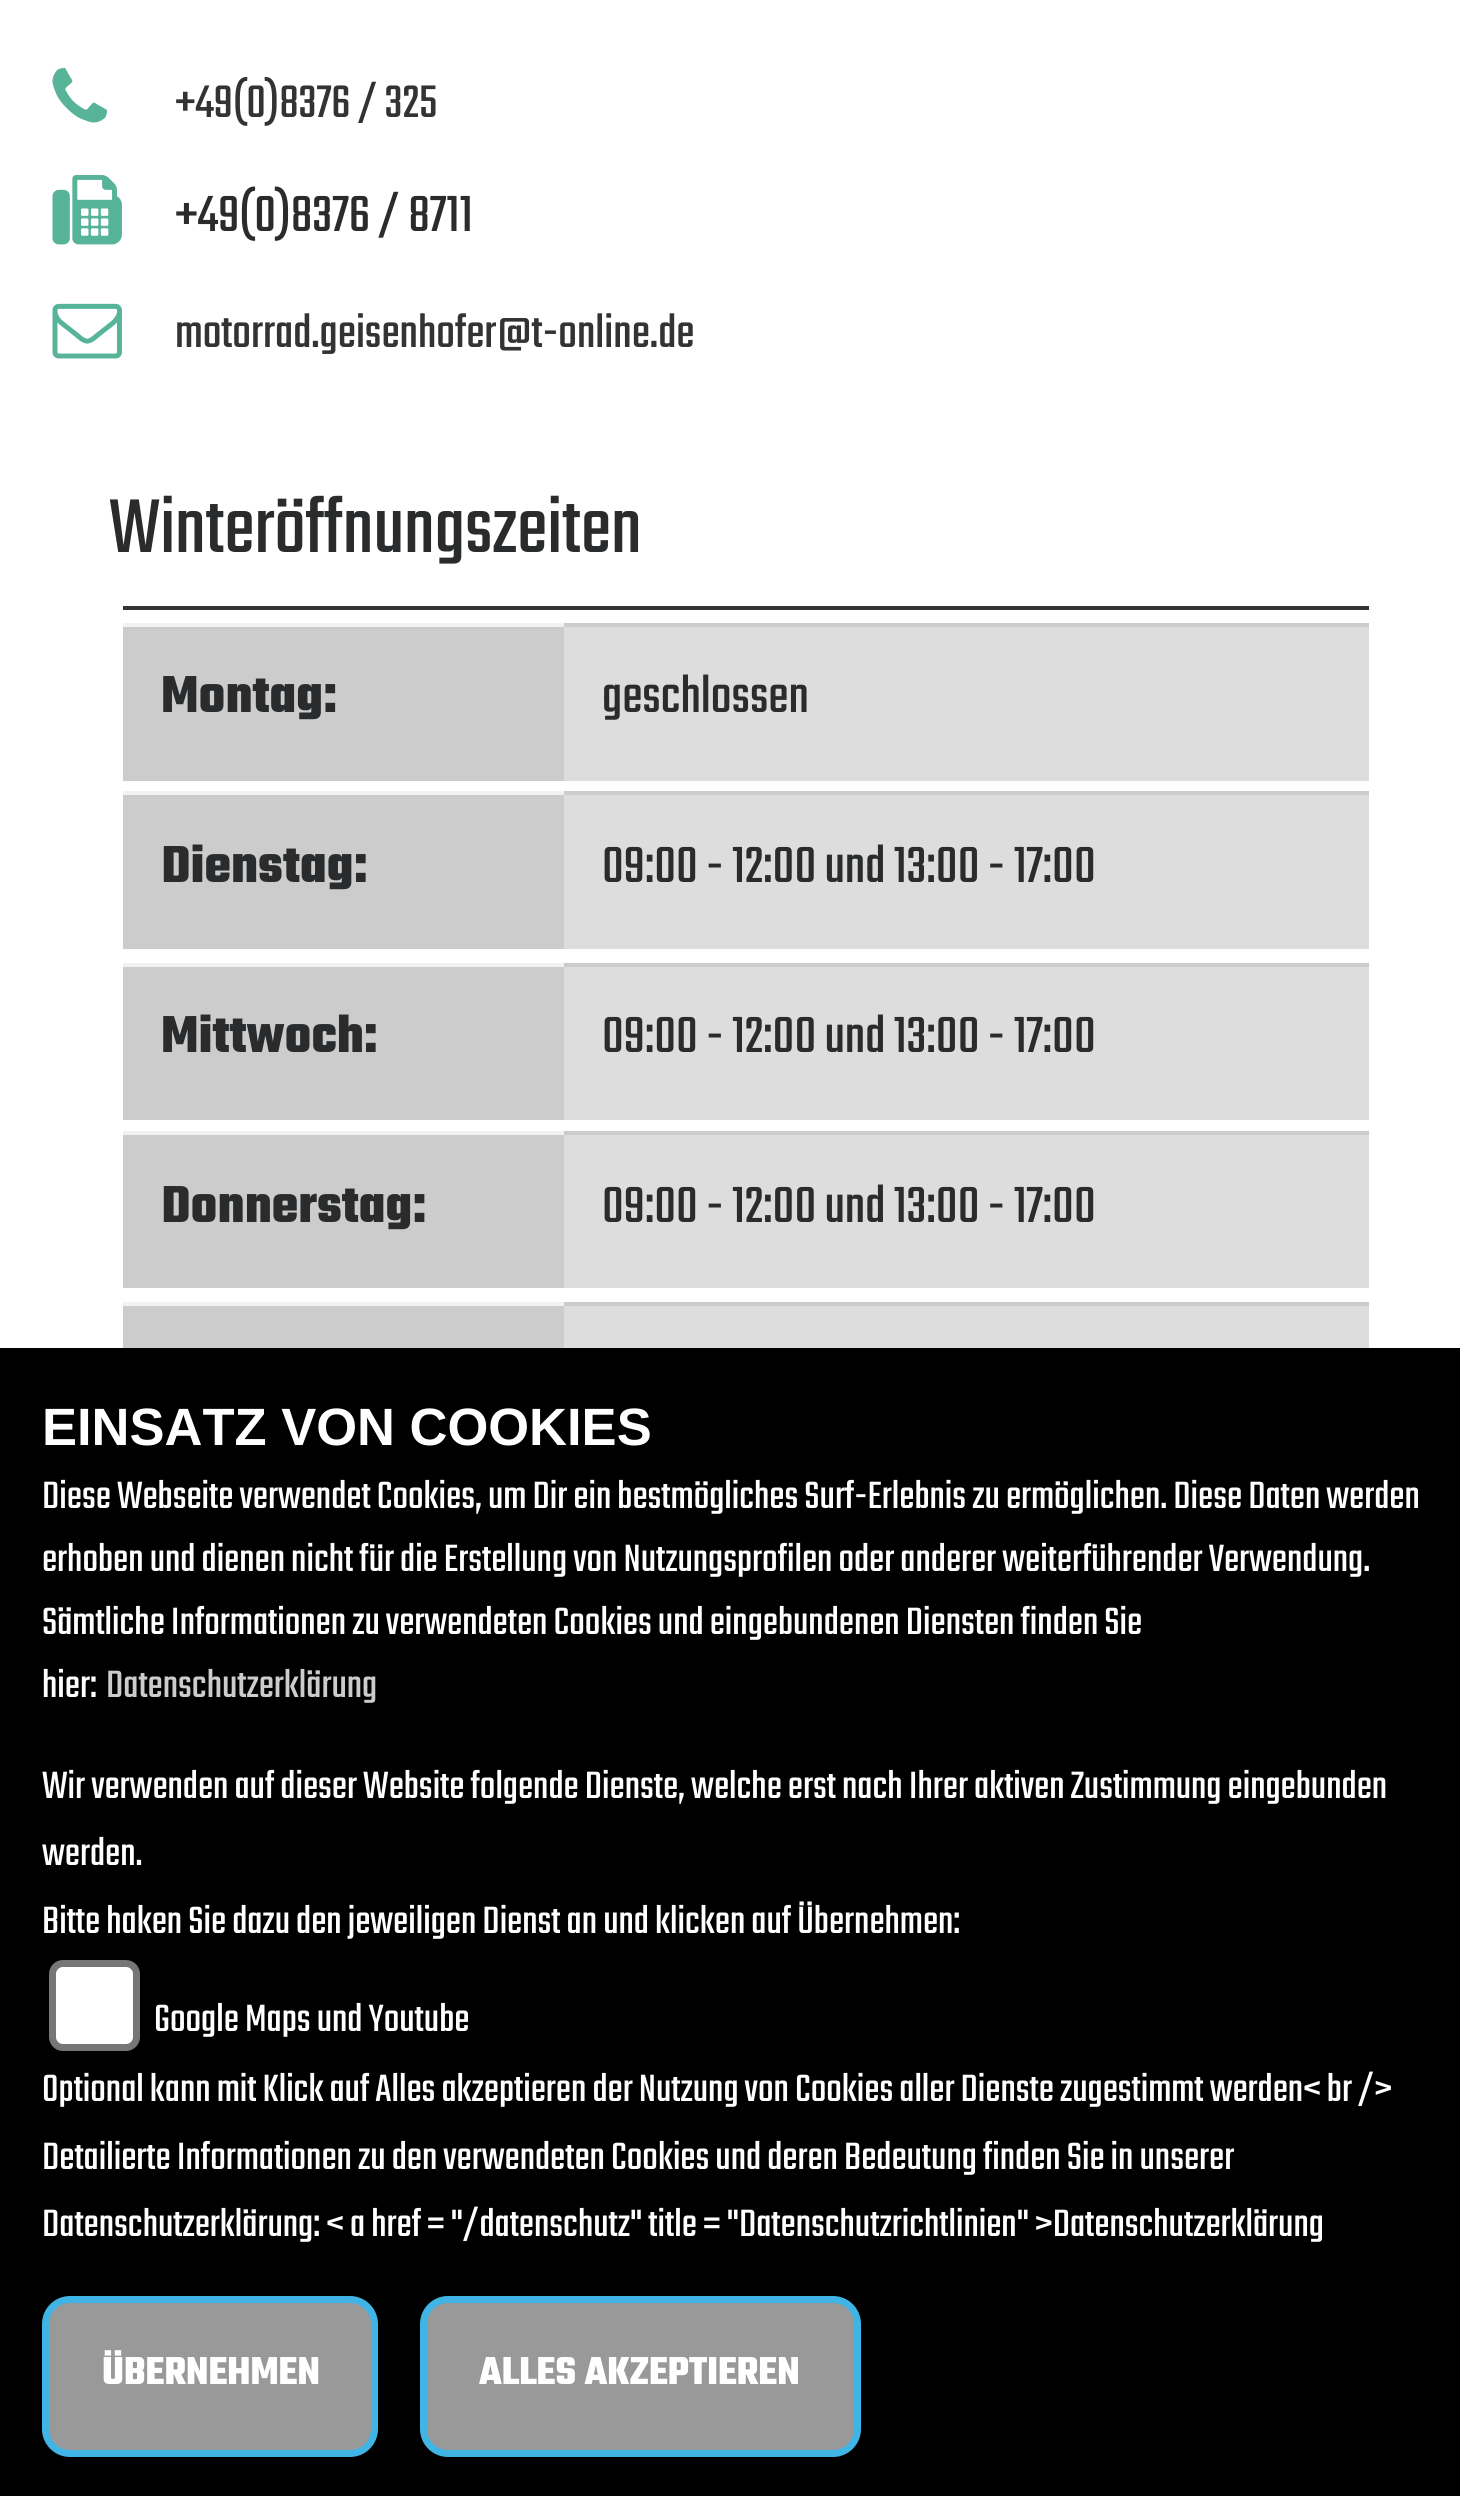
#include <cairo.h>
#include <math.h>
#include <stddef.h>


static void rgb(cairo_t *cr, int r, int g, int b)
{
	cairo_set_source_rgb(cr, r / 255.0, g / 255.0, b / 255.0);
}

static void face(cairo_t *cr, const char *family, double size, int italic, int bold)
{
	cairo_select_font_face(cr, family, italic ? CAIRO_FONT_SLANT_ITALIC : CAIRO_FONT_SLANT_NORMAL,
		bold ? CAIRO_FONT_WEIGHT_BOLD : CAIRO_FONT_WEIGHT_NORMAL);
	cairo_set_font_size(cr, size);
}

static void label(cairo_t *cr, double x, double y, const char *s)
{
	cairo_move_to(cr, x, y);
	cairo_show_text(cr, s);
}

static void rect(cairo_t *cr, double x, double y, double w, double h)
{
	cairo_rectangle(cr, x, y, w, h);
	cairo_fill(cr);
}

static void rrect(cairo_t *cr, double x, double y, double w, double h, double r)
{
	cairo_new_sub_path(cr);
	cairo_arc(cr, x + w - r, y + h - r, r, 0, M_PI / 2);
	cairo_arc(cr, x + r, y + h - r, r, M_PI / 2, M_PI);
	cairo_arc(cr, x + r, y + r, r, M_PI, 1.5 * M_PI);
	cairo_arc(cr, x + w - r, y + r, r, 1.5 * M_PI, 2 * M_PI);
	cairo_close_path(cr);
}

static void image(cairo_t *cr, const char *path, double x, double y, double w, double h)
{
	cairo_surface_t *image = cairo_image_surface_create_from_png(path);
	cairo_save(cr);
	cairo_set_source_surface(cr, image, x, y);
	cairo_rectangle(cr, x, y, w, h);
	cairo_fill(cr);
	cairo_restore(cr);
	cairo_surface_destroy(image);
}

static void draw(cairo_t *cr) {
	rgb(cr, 255, 255, 255);
	cairo_paint(cr);
	image(cr, "image0.png", 52, 68, 55, 55);
	face(cr, "Teko", 50.4, 0, 0);
	rgb(cr, 51, 51, 51);
	label(cr, 175, 117, "+49(0)8376 / 325");
	image(cr, "image1.png", 52, 175, 70, 70);
	face(cr, "Teko", 56, 0, 0);
	rgb(cr, 41, 43, 44);
	label(cr, 175, 231, "+49(0)8376 / 8711");
	image(cr, "image2.png", 52, 303, 70, 56);
	face(cr, "Teko", 50.4, 0, 0);
	rgb(cr, 51, 51, 51);
	label(cr, 175, 347, "motorrad.geisenhofer@t-online.de");
	face(cr, "Teko", 84, 0, 0);
	rgb(cr, 41, 43, 44);
	label(cr, 109, 552, "Winteröffnungszeiten");
	rgb(cr, 51, 51, 51);
	rect(cr, 123, 606, 1246, 4);
	rgb(cr, 221, 221, 221);
	rect(cr, 564, 627, 805, 154);
	rgb(cr, 204, 204, 204);
	rect(cr, 123, 627, 441, 154);
	rgb(cr, 242, 242, 242);
	rect(cr, 123, 623, 441, 4);
	face(cr, "Teko", 56, 0, 1);
	rgb(cr, 41, 43, 44);
	label(cr, 161, 712, "Montag:");
	rgb(cr, 204, 204, 204);
	rect(cr, 564, 623, 805, 4);
	face(cr, "Teko", 56, 0, 0);
	rgb(cr, 41, 43, 44);
	label(cr, 602, 712, "geschlossen");
	rgb(cr, 221, 221, 221);
	rect(cr, 564, 795, 805, 154);
	rgb(cr, 204, 204, 204);
	rect(cr, 123, 795, 441, 154);
	rgb(cr, 242, 242, 242);
	rect(cr, 123, 791, 441, 4);
	face(cr, "Teko", 56, 0, 1);
	rgb(cr, 41, 43, 44);
	label(cr, 161, 882, "Dienstag:");
	rgb(cr, 204, 204, 204);
	rect(cr, 564, 791, 805, 4);
	face(cr, "Teko", 56, 0, 0);
	rgb(cr, 41, 43, 44);
	label(cr, 602, 882, "09:00 - 12:00 und 13:00 - 17:00");
	rgb(cr, 221, 221, 221);
	rect(cr, 564, 967, 805, 153);
	rgb(cr, 204, 204, 204);
	rect(cr, 123, 967, 441, 153);
	rgb(cr, 242, 242, 242);
	rect(cr, 123, 963, 441, 4);
	face(cr, "Teko", 56, 0, 1);
	rgb(cr, 41, 43, 44);
	label(cr, 161, 1052, "Mittwoch:");
	rgb(cr, 204, 204, 204);
	rect(cr, 564, 963, 805, 4);
	face(cr, "Teko", 56, 0, 0);
	rgb(cr, 41, 43, 44);
	label(cr, 602, 1052, "09:00 - 12:00 und 13:00 - 17:00");
	rgb(cr, 221, 221, 221);
	rect(cr, 564, 1135, 805, 153);
	rgb(cr, 204, 204, 204);
	rect(cr, 123, 1135, 441, 153);
	rgb(cr, 242, 242, 242);
	rect(cr, 123, 1131, 441, 4);
	face(cr, "Teko", 56, 0, 1);
	rgb(cr, 41, 43, 44);
	label(cr, 161, 1222, "Donnerstag:");
	rgb(cr, 204, 204, 204);
	rect(cr, 564, 1131, 805, 4);
	face(cr, "Teko", 56, 0, 0);
	rgb(cr, 41, 43, 44);
	label(cr, 602, 1222, "09:00 - 12:00 und 13:00 - 17:00");
	rgb(cr, 221, 221, 221);
	rect(cr, 564, 1306, 805, 42);
	rgb(cr, 204, 204, 204);
	rect(cr, 123, 1306, 441, 42);
	rgb(cr, 242, 242, 242);
	rect(cr, 123, 1302, 441, 4);
	rgb(cr, 204, 204, 204);
	rect(cr, 564, 1302, 805, 4);
	rgb(cr, 0, 0, 0);
	rect(cr, 0, 1348, 1460, 1148);
	face(cr, "Liberation Sans", 52.5, 0, 1);
	rgb(cr, 255, 255, 255);
	label(cr, 42, 1445, "EINSATZ VON COOKIES");
	face(cr, "Teko", 42, 0, 0);
	label(cr, 42, 1508, "Diese Webseite verwendet Cookies, um Dir ein bestmögliches Surf-Erlebnis zu ermöglichen. Diese Daten werden");
	label(cr, 42, 1571, "erhoben und dienen nicht für die Erstellung von Nutzungsprofilen oder anderer weiterführender Verwendung.");
	label(cr, 42, 1634, "Sämtliche Informationen zu verwendeten Cookies und eingebundenen Diensten finden Sie");
	label(cr, 42, 1697, "hier:");
	rgb(cr, 204, 204, 204);
	label(cr, 106, 1697, "Datenschutzerklärung");
	rgb(cr, 255, 255, 255);
	label(cr, 42, 1798, "Wir verwenden auf dieser Website folgende Dienste, welche erst nach Ihrer aktiven Zustimmung eingebunden");
	label(cr, 42, 1865, "werden.");
	label(cr, 42, 1933, "Bitte haken Sie dazu den jeweiligen Dienst an und klicken auf Übernehmen:");
	rrect(cr, 52.5, 1963.5, 84, 84, 10.5);
	cairo_fill_preserve(cr);
	rgb(cr, 118, 118, 118);
	cairo_set_line_width(cr, 7);
	cairo_stroke(cr);
	rgb(cr, 255, 255, 255);
	label(cr, 154, 2031, "Google Maps und Youtube");
	label(cr, 42, 2101, "Optional kann mit Klick auf Alles akzeptieren der Nutzung von Cookies aller Dienste zugestimmt werden< br />");
	label(cr, 42, 2169, "Detailierte Informationen zu den verwendeten Cookies und deren Bedeutung finden Sie in unserer");
	label(cr, 42, 2236, "Datenschutzerklärung: < a href = \"/datenschutz\" title = \"Datenschutzrichtlinien\" >Datenschutzerklärung");
	rgb(cr, 153, 153, 153);
	rrect(cr, 45.5, 2299.5, 329, 154, 24.5);
	cairo_fill_preserve(cr);
	rgb(cr, 64, 180, 229);
	cairo_stroke(cr);
	face(cr, "Teko", 42, 0, 1);
	rgb(cr, 255, 255, 255);
	label(cr, 102, 2384, "ÜBERNEHMEN");
	rgb(cr, 153, 153, 153);
	rrect(cr, 423.5, 2299.5, 434, 154, 24.5);
	cairo_fill_preserve(cr);
	rgb(cr, 64, 180, 229);
	cairo_stroke(cr);
	rgb(cr, 255, 255, 255);
	label(cr, 479, 2384, "ALLES AKZEPTIEREN");
}

int main(void) {
	cairo_surface_t *surface = cairo_image_surface_create(CAIRO_FORMAT_RGB24, 1460, 2496);
	cairo_t *cr = cairo_create(surface);
	cairo_font_options_t *options = cairo_font_options_create();
	cairo_font_options_set_hint_metrics(options, CAIRO_HINT_METRICS_OFF);
	cairo_font_options_set_hint_style(options, CAIRO_HINT_STYLE_NONE);
	cairo_set_font_options(cr, options);
	cairo_set_miter_limit(cr, 4);
	draw(cr);
	cairo_surface_write_to_png(surface, "render.png");
	cairo_font_options_destroy(options);
	cairo_destroy(cr);
	cairo_surface_destroy(surface);
	return 0;
}
